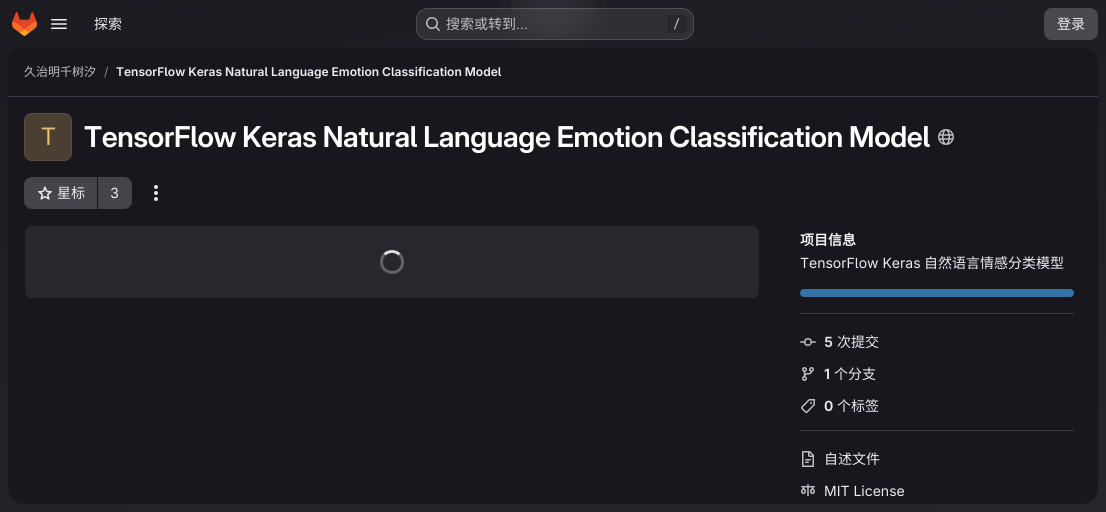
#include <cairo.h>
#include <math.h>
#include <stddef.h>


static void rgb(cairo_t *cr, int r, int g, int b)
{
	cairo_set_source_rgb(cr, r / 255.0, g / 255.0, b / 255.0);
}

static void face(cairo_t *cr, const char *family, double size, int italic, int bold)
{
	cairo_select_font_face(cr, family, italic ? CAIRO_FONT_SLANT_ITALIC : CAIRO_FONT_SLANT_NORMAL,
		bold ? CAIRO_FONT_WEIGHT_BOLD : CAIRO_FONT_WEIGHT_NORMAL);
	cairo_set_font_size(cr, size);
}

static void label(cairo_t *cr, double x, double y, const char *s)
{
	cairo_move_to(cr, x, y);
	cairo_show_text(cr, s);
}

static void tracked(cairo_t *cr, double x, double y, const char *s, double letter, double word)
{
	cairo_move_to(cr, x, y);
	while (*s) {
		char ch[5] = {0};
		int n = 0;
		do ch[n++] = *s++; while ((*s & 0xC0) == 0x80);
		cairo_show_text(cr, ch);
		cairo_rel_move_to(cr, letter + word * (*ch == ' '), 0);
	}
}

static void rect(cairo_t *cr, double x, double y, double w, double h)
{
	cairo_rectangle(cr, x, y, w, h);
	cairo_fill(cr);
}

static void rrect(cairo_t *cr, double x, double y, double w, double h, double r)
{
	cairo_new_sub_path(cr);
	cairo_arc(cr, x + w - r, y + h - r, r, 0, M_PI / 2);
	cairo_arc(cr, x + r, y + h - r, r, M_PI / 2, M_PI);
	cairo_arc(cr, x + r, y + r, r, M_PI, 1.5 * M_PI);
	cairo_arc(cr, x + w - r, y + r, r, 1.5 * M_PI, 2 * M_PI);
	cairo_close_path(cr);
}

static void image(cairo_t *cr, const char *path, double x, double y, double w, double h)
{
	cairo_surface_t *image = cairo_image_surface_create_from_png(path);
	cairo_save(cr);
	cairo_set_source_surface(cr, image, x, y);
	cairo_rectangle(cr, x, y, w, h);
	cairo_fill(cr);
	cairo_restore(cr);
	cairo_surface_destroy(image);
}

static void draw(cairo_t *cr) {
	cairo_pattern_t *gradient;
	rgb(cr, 255, 255, 255);
	cairo_paint(cr);
	gradient = cairo_pattern_create_linear(613, 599, 493, -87);
	cairo_pattern_add_color_stop_rgba(gradient, 0, 0.149, 0.145, 0.169, 1);
	cairo_pattern_add_color_stop_rgba(gradient, 1, 0.11, 0.106, 0.129, 1);
	cairo_set_source(cr, gradient);
	cairo_pattern_destroy(gradient);
	rect(cr, 0, 0, 1106, 512);
	gradient = cairo_pattern_create_radial(0, 0, 0, 0, 0, 1);
	cairo_pattern_set_matrix(gradient, &(cairo_matrix_t){1.0 / 553, 0, 0, 1.0 / 512, -1.0 * 553 / 553, -1.0 * 0 / 512});
	cairo_pattern_add_color_stop_rgba(gradient, 0, 0.188, 0.18, 0.204, 0.7);
	cairo_pattern_add_color_stop_rgba(gradient, 0.12, 0.188, 0.18, 0.204, 0);
	cairo_set_source(cr, gradient);
	cairo_pattern_destroy(gradient);
	rect(cr, 498, 0, 109, 48);
	gradient = cairo_pattern_create_radial(0, 0, 0, 0, 0, 1);
	cairo_pattern_set_matrix(gradient, &(cairo_matrix_t){1.0 / 553, 0, 0, 1.0 / 512, -1.0 * 553 / 553, -1.0 * 0 / 512});
	cairo_pattern_add_color_stop_rgba(gradient, 0, 0.184, 0.18, 0.204, 1);
	cairo_pattern_add_color_stop_rgba(gradient, 0.09, 0.184, 0.18, 0.204, 0);
	cairo_set_source(cr, gradient);
	cairo_pattern_destroy(gradient);
	rect(cr, 511, 0, 84, 38);
	image(cr, "image0.png", 12, 12, 25, 24);
	image(cr, "image1.png", 51, 19, 16, 10);
	face(cr, "Noto Sans CJK SC", 14, 0, 0);
	rgb(cr, 236, 236, 239);
	label(cr, 94, 29, "探索");
	cairo_set_source_rgba(cr, 1, 1, 1, 0.08);
	rrect(cr, 416, 8, 278, 32, 12);
	cairo_fill(cr);
	rrect(cr, 416.5, 8.5, 277, 31, 11.5);
	cairo_set_source_rgba(cr, 1, 1, 1, 0.16);
	cairo_set_line_width(cr, 1);
	cairo_stroke(cr);
	image(cr, "image2.png", 426, 17, 14, 14);
	rgb(cr, 191, 191, 195);
	label(cr, 446, 29, "搜索或转到");
	face(cr, "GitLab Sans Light", 14, 0, 0);
	label(cr, 516, 29, "…");
	rgb(cr, 40, 39, 45);
	rrect(cr, 667, 15, 20, 18, 4);
	cairo_fill(cr);
	face(cr, "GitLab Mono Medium", 12, 0, 0);
	rgb(cr, 191, 191, 195);
	label(cr, 673, 28, "/");
	rgb(cr, 73, 72, 78);
	rrect(cr, 1044, 8, 54, 32, 8);
	cairo_fill(cr);
	face(cr, "Noto Sans CJK SC", 14, 0, 0);
	rgb(cr, 236, 236, 239);
	label(cr, 1057, 29, "登录");
	rgb(cr, 24, 23, 29);
	rrect(cr, 8, 48, 1090, 456, 16);
	cairo_fill(cr);
	rgb(cr, 59, 56, 71);
	rect(cr, 8, 96, 1090, 1);
	face(cr, "Noto Sans CJK SC", 12, 0, 0);
	rgb(cr, 191, 191, 195);
	label(cr, 24, 76, "久治明千树汐");
	face(cr, "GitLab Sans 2", 12, 0, 0);
	rgb(cr, 137, 136, 141);
	label(cr, 104, 76, "/");
	face(cr, "GitLab Sans 2 SemiBold", 12, 0, 0);
	rgb(cr, 236, 236, 239);
	label(cr, 116, 76, "TensorFlow Keras Natural Language Emotion Classification Model");
	rgb(cr, 74, 63, 50);
	rrect(cr, 24, 113, 48, 48, 8);
	cairo_fill(cr);
	rrect(cr, 24.5, 113.5, 47, 47, 7.5);
	cairo_set_source_rgba(cr, 1, 1, 1, 0.08);
	cairo_stroke(cr);
	face(cr, "GitLab Sans", 24, 0, 0);
	rgb(cr, 233, 190, 116);
	label(cr, 41, 145, "T");
	face(cr, "GitLab Sans SemiBold", 28.7, 0, 0);
	rgb(cr, 255, 255, 255);
	tracked(cr, 84, 147, "TensorFlow Keras Natural Language Emotion Classification Model", -0.3, 0);
	image(cr, "image3.png", 938, 129, 16, 16);
	rgb(cr, 69, 68, 74);
	cairo_new_path(cr);
	cairo_move_to(cr, 32, 177);
	cairo_line_to(cr, 97, 177);
	cairo_line_to(cr, 97, 209);
	cairo_line_to(cr, 32, 209);
	cairo_curve_to(cr, 27.5, 209, 24, 205.5, 24, 201);
	cairo_line_to(cr, 24, 185);
	cairo_curve_to(cr, 24, 180.5, 27.5, 177, 32, 177);
	cairo_close_path(cr);
	cairo_fill(cr);
	image(cr, "image4.png", 38, 186, 14, 14);
	face(cr, "Noto Sans CJK SC", 14, 0, 0);
	rgb(cr, 236, 236, 239);
	label(cr, 57, 198, "星标");
	rgb(cr, 69, 68, 74);
	cairo_new_path(cr);
	cairo_move_to(cr, 98, 177);
	cairo_line_to(cr, 124, 177);
	cairo_curve_to(cr, 128.5, 177, 132, 180.5, 132, 185);
	cairo_line_to(cr, 132, 201);
	cairo_curve_to(cr, 132, 205.5, 128.5, 209, 124, 209);
	cairo_line_to(cr, 98, 209);
	cairo_close_path(cr);
	cairo_fill(cr);
	face(cr, "GitLab Sans 2", 14, 0, 0);
	rgb(cr, 236, 236, 239);
	label(cr, 110, 198, "3");
	image(cr, "image5.png", 154, 185, 4, 16);
	rgb(cr, 40, 39, 45);
	rrect(cr, 24.5, 225.5, 735, 73, 7.5);
	cairo_fill_preserve(cr);
	rgb(cr, 24, 23, 29);
	cairo_stroke(cr);
	cairo_new_path(cr);
	cairo_move_to(cr, 384.5, 254.5);
	cairo_curve_to(cr, 388.5, 250.5, 395.5, 250.5, 399.5, 254.5);
	rgb(cr, 220, 220, 222);
	cairo_set_line_width(cr, 3);
	cairo_stroke(cr);
	cairo_new_path(cr);
	cairo_move_to(cr, 399.5, 254.5);
	cairo_curve_to(cr, 402, 257, 403, 260.5, 402.5, 264);
	cairo_curve_to(cr, 400, 276.5, 381.5, 274.5, 381.5, 262);
	cairo_curve_to(cr, 381.5, 259, 382.5, 256.5, 384.5, 254.5);
	rgb(cr, 98, 97, 104);
	cairo_stroke(cr);
	rgb(cr, 58, 56, 63);
	rect(cr, 800, 313, 274, 1);
	face(cr, "Noto Sans CJK SC", 14, 0, 1);
	rgb(cr, 255, 255, 255);
	label(cr, 800, 245, "项目信息");
	face(cr, "GitLab Sans 2", 14, 0, 0);
	rgb(cr, 236, 236, 239);
	label(cr, 800, 268, "TensorFlow Keras");
	face(cr, "Noto Sans CJK SC", 14, 0, 0);
	label(cr, 924, 268, "自然语言情感分类模型");
	rgb(cr, 53, 114, 165);
	rrect(cr, 800, 289, 274, 8, 4);
	cairo_fill(cr);
	rgb(cr, 58, 56, 63);
	rect(cr, 800, 430, 274, 1);
	image(cr, "image6.png", 800, 338, 16, 8);
	face(cr, "GitLab Sans 2 SemiBold", 14, 0, 0);
	rgb(cr, 236, 236, 239);
	label(cr, 824, 347, "5");
	face(cr, "Noto Sans CJK SC", 14, 0, 0);
	label(cr, 837, 347, "次提交");
	image(cr, "image7.png", 802, 367, 12, 14);
	face(cr, "GitLab Sans 2 SemiBold", 14, 0, 0);
	label(cr, 824, 379, "1");
	face(cr, "Noto Sans CJK SC", 14, 0, 0);
	label(cr, 834, 379, "个分支");
	image(cr, "image8.png", 801, 399, 14, 14);
	face(cr, "GitLab Sans 2 SemiBold", 14, 0, 0);
	label(cr, 824, 411, "0");
	face(cr, "Noto Sans CJK SC", 14, 0, 0);
	label(cr, 837, 411, "个标签");
	image(cr, "image9.png", 802, 451, 12, 16);
	label(cr, 824, 464, "自述文件");
	image(cr, "image10.png", 801, 484, 14, 12);
	cairo_save(cr);
	cairo_rectangle(cr, 792, 225, 290, 271);
	cairo_clip(cr);
	face(cr, "GitLab Sans 2", 14, 0, 0);
	label(cr, 824, 496, "MIT License");
	cairo_restore(cr);
}

int main(void) {
	cairo_surface_t *surface = cairo_image_surface_create(CAIRO_FORMAT_RGB24, 1106, 512);
	cairo_t *cr = cairo_create(surface);
	cairo_font_options_t *options = cairo_font_options_create();
	cairo_font_options_set_hint_metrics(options, CAIRO_HINT_METRICS_OFF);
	cairo_font_options_set_hint_style(options, CAIRO_HINT_STYLE_NONE);
	cairo_set_font_options(cr, options);
	cairo_set_miter_limit(cr, 4);
	draw(cr);
	cairo_surface_write_to_png(surface, "render.png");
	cairo_font_options_destroy(options);
	cairo_destroy(cr);
	cairo_surface_destroy(surface);
	return 0;
}
